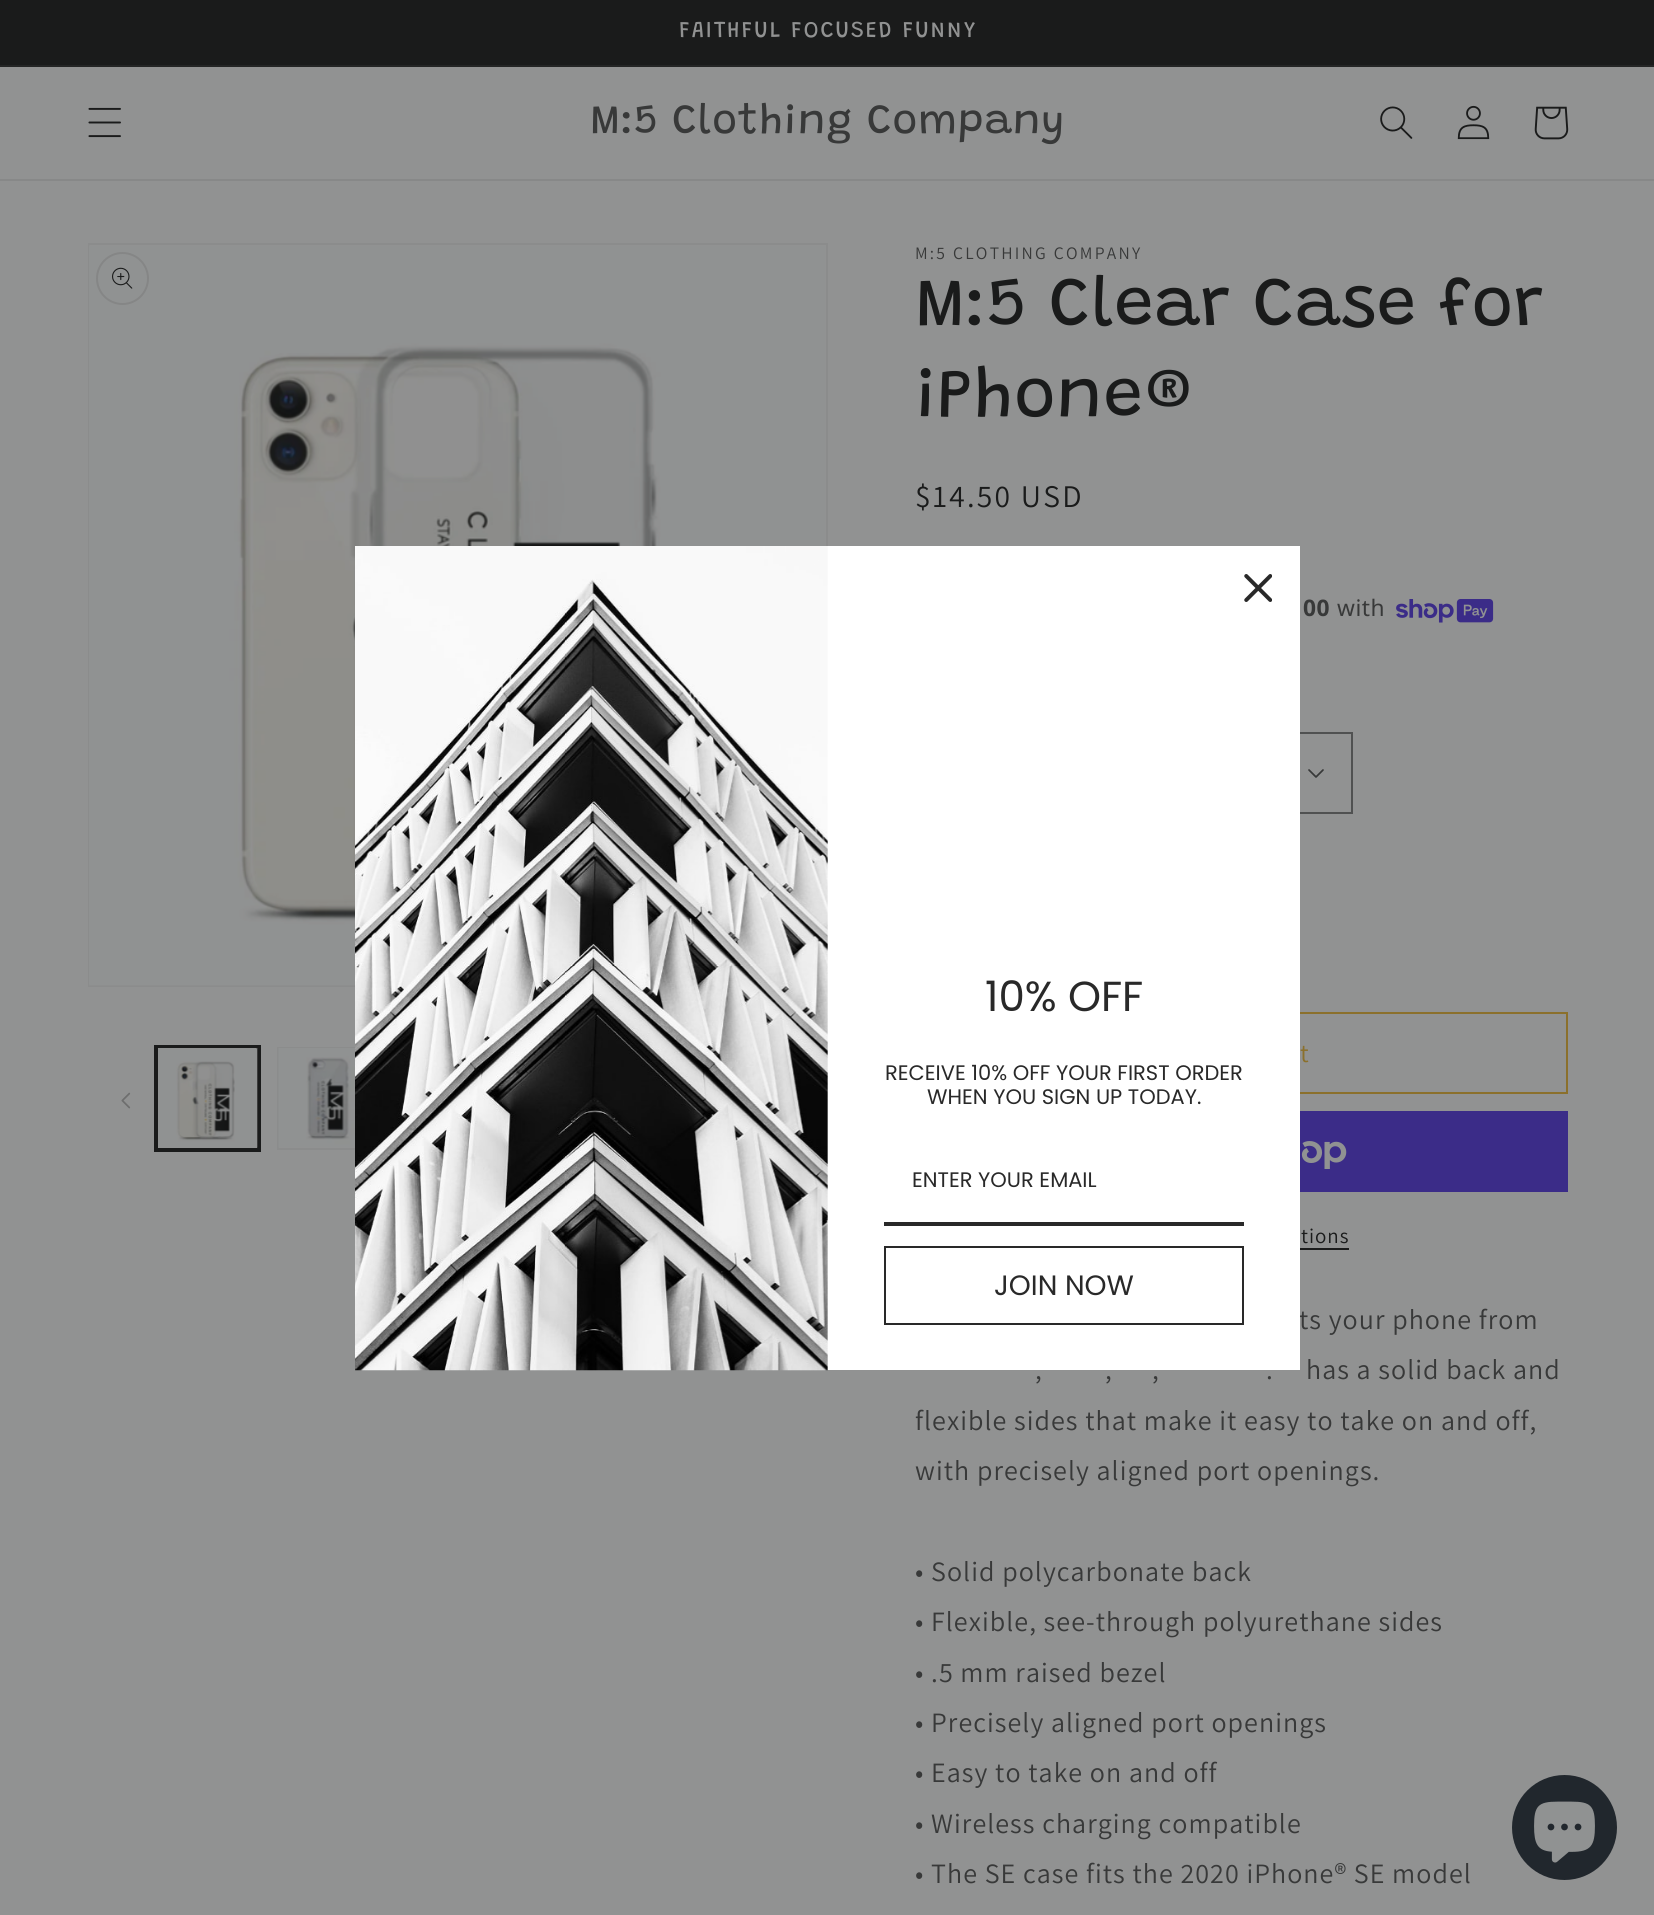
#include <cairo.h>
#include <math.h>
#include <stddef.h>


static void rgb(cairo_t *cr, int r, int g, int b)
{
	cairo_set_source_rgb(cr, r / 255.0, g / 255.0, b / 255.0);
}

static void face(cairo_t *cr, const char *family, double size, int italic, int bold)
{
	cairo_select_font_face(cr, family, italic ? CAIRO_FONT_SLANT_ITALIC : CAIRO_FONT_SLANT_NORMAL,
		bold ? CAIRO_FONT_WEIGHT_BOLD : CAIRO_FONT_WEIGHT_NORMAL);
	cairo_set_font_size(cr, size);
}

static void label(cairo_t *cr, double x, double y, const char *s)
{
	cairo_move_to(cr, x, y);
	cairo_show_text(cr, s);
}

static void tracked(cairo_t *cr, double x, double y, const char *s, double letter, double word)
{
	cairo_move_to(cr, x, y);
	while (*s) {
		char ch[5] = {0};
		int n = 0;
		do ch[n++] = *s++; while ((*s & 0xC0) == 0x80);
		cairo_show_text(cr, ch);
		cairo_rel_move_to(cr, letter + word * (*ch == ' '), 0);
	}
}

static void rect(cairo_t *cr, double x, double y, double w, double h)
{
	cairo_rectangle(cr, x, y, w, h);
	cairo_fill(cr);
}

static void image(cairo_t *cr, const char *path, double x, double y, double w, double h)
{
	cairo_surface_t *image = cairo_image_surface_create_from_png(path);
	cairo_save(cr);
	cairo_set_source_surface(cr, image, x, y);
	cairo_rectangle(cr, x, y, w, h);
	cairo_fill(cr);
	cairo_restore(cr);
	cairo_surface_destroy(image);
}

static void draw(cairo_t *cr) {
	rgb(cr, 145, 146, 146);
	cairo_paint(cr);
	rgb(cr, 26, 27, 27);
	rect(cr, 0, 0, 1654, 65);
	rgb(cr, 36, 37, 37);
	rect(cr, 0, 65, 1654, 2);
	face(cr, "Grandstander", 22.75, 0, 0);
	rgb(cr, 145, 146, 146);
	tracked(cr, 679, 37, "FAITHFUL FOCUSED FUNNY", 1.75, 0);
	rgb(cr, 135, 136, 136);
	rect(cr, 0, 179, 1654, 2);
	image(cr, "image0.png", 88, 107, 33, 31);
	face(cr, "Grandstander", 42, 0, 0);
	rgb(cr, 56, 57, 57);
	tracked(cr, 590, 133, "M:5 Clothing Company", 1.05, 0);
	image(cr, "image1.png", 1380, 106, 33, 33);
	image(cr, "image2.png", 1457, 105, 33, 35);
	image(cr, "image3.png", 1534, 106, 35, 34);
	cairo_rectangle(cr, 89, 244, 738, 742);
	rgb(cr, 139, 140, 140);
	cairo_stroke(cr);
	image(cr, "image4.png", 89, 245, 736, 741);
	cairo_arc(cr, 122.5, 278.5, 25.5, 0, 2 * M_PI);
	rgb(cr, 133, 134, 134);
	cairo_stroke(cr);
	image(cr, "image5.png", 112, 267, 21, 22);
	image(cr, "image6.png", 121, 1092, 10, 17);
	cairo_rectangle(cr, 155, 1046, 105, 105);
	rgb(cr, 26, 27, 27);
	cairo_stroke(cr);
	cairo_rectangle(cr, 157, 1048, 101, 101);
	cairo_stroke(cr);
	image(cr, "image7.png", 158, 1048, 100, 100);
	cairo_rectangle(cr, 278, 1048, 101, 101);
	rgb(cr, 139, 140, 140);
	cairo_stroke(cr);
	image(cr, "image8.png", 278, 1048, 77, 100);
	face(cr, "Assistant", 17.5, 0, 0);
	rgb(cr, 56, 57, 57);
	tracked(cr, 915, 259, "M:5 CLOTHING COMPANY", 2.25, 0);
	face(cr, "Grandstander", 70, 0, 0);
	rgb(cr, 26, 27, 27);
	tracked(cr, 915, 325, "M:5 Clear Case for", 1.05, 0);
	tracked(cr, 915, 416, "iPhone®", 1.05, 0);
	face(cr, "Assistant", 31.5, 0, 0);
	tracked(cr, 915, 507, "$14.50 USD", 2.25, 0);
	face(cr, "Noto Sans", 22.75, 0, 1);
	rgb(cr, 56, 57, 57);
	tracked(cr, 1303, 616, "00", 0.5, 0);
	face(cr, "Noto Sans", 22.75, 0, 0);
	tracked(cr, 1337, 616, "with", 0.5, 0);
	image(cr, "image9.png", 1396, 599, 98, 24);
	image(cr, "image10.png", 1308, 769, 16, 9);
	cairo_rectangle(cr, 916, 733, 436, 80);
	rgb(cr, 80, 81, 81);
	cairo_stroke(cr);
	cairo_rectangle(cr, 916, 1013, 651, 80);
	rgb(cr, 139, 112, 44);
	cairo_stroke(cr);
	face(cr, "Assistant", 26, 0, 0);
	tracked(cr, 1300, 1062, "t", 1.75, 0);
	rgb(cr, 59, 44, 136);
	rect(cr, 1300, 1111, 268, 81);
	image(cr, "image11.png", 1301, 1141, 46, 28);
	face(cr, "Assistant", 21, 0, 0);
	rgb(cr, 26, 27, 27);
	tracked(cr, 1301, 1243, "tions", 1, 0);
	rect(cr, 1300, 1248, 49, 2);
	face(cr, "Assistant", 28, 0, 0);
	rgb(cr, 56, 57, 57);
	tracked(cr, 1299, 1329, "ts your phone from", 1.05, 0);
	tracked(cr, 1035, 1379, ",", 1.05, 0);
	tracked(cr, 1105, 1379, ",", 1.05, 0);
	tracked(cr, 1152, 1379, ",", 1.05, 0);
	tracked(cr, 1266, 1379, ".", 1.05, 0);
	tracked(cr, 1306, 1379, "has a solid back and", 1.05, 0);
	tracked(cr, 915, 1430, "flexible sides that make it easy to take on and off,", 1.05, 0);
	tracked(cr, 915, 1480, "with precisely aligned port openings.", 1.05, 0);
	tracked(cr, 915, 1581, "• Solid polycarbonate back", 1.05, 0);
	tracked(cr, 915, 1631, "• Flexible, see-through polyurethane sides", 1.05, 0);
	tracked(cr, 915, 1682, "• .5 mm raised bezel", 1.05, 0);
	tracked(cr, 915, 1732, "• Precisely aligned port openings", 1.05, 0);
	tracked(cr, 915, 1782, "• Easy to take on and off", 1.05, 0);
	tracked(cr, 915, 1833, "• Wireless charging compatible", 1.05, 0);
	tracked(cr, 915, 1883, "• The SE case fits the 2020 iPhone® SE model", 1.05, 0);
	rgb(cr, 255, 255, 255);
	rect(cr, 827, 546, 473, 824);
	image(cr, "image12.png", 1244, 574, 28, 28);
	image(cr, "image13.png", 355, 546, 473, 825);
	face(cr, "Poppins", 42, 0, 0);
	rgb(cr, 41, 41, 41);
	label(cr, 985, 1011, "10% OFF");
	face(cr, "Poppins", 21, 0, 0);
	label(cr, 885, 1080, "RECEIVE 10% OFF YOUR FIRST ORDER");
	label(cr, 927, 1104, "WHEN YOU SIGN UP TODAY.");
	rect(cr, 884, 1222, 360, 4);
	label(cr, 912, 1187, "ENTER YOUR EMAIL");
	cairo_rectangle(cr, 885, 1247, 358, 77);
	cairo_stroke(cr);
	face(cr, "Poppins", 28, 0, 0);
	label(cr, 994, 1295, "JOIN NOW");
	rgb(cr, 33, 39, 45);
	cairo_new_path(cr);
	cairo_arc(cr, 1564.5, 1827.5, 52.5, 0, 2 * M_PI);
	cairo_fill(cr);
	image(cr, "image14.png", 1534, 1801, 61, 62);
}

int main(void) {
	cairo_surface_t *surface = cairo_image_surface_create(CAIRO_FORMAT_RGB24, 1654, 1915);
	cairo_t *cr = cairo_create(surface);
	cairo_font_options_t *options = cairo_font_options_create();
	cairo_font_options_set_hint_metrics(options, CAIRO_HINT_METRICS_OFF);
	cairo_font_options_set_hint_style(options, CAIRO_HINT_STYLE_NONE);
	cairo_set_font_options(cr, options);
	cairo_set_miter_limit(cr, 4);
	draw(cr);
	cairo_surface_write_to_png(surface, "render.png");
	cairo_font_options_destroy(options);
	cairo_destroy(cr);
	cairo_surface_destroy(surface);
	return 0;
}
